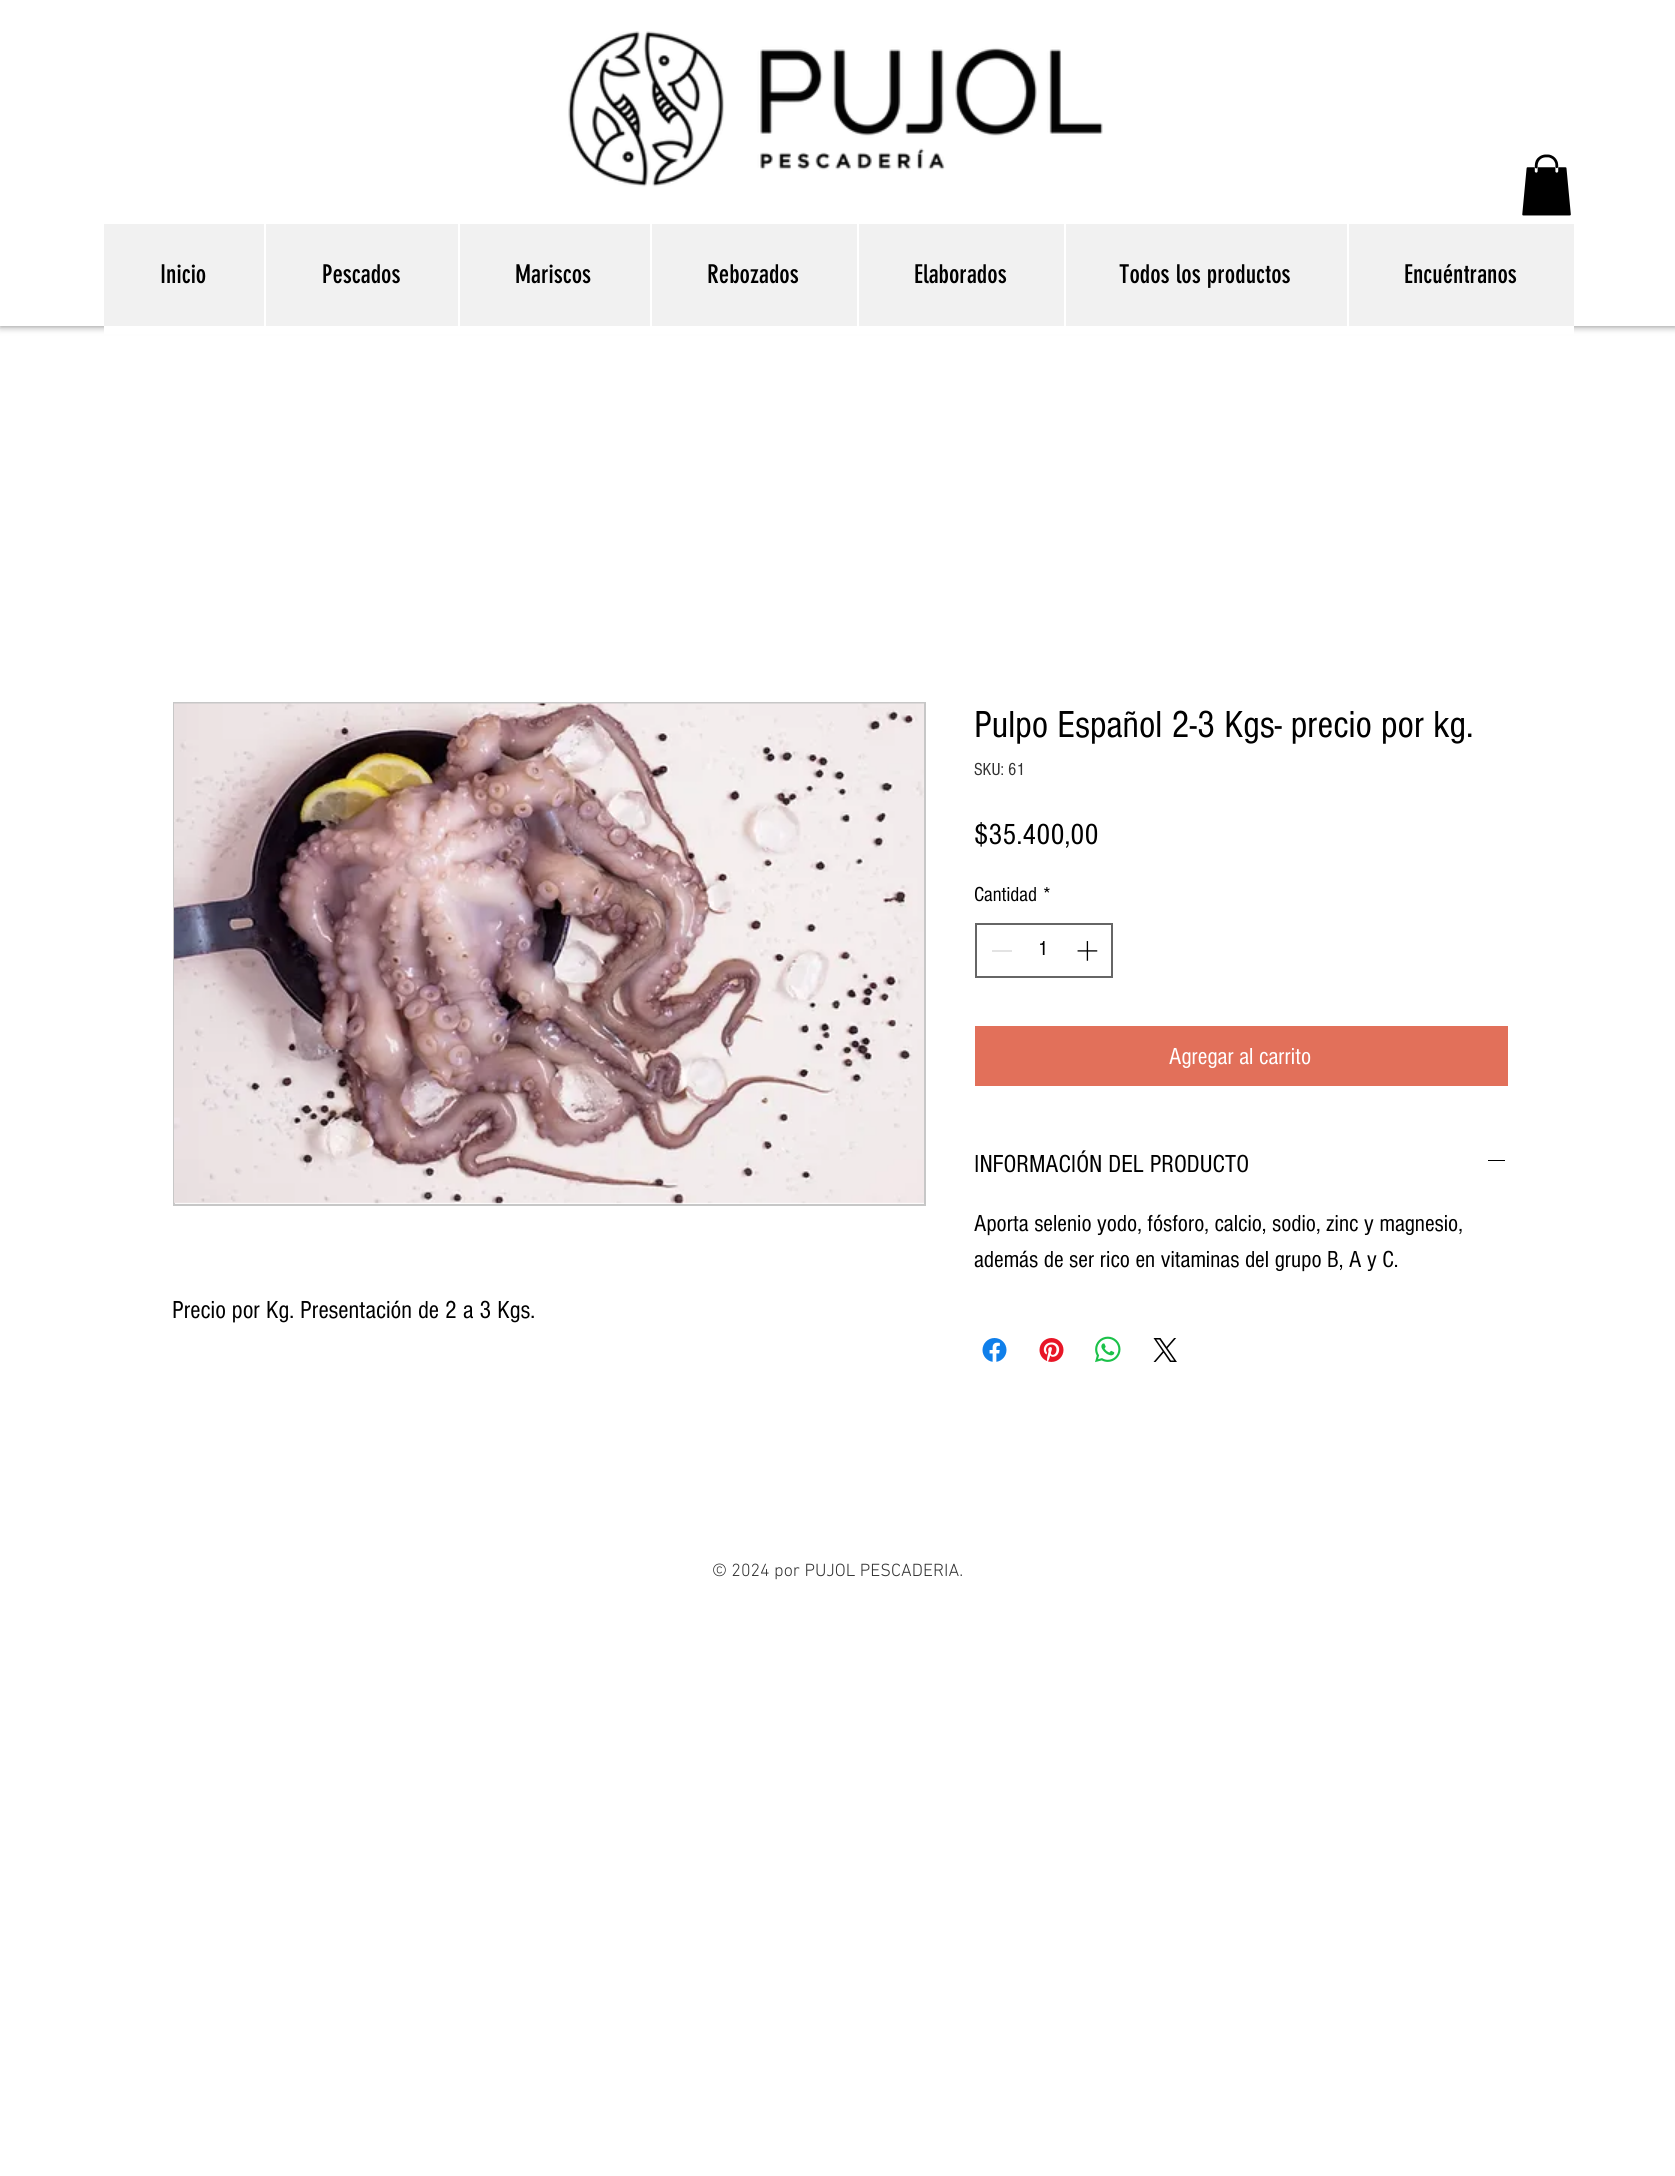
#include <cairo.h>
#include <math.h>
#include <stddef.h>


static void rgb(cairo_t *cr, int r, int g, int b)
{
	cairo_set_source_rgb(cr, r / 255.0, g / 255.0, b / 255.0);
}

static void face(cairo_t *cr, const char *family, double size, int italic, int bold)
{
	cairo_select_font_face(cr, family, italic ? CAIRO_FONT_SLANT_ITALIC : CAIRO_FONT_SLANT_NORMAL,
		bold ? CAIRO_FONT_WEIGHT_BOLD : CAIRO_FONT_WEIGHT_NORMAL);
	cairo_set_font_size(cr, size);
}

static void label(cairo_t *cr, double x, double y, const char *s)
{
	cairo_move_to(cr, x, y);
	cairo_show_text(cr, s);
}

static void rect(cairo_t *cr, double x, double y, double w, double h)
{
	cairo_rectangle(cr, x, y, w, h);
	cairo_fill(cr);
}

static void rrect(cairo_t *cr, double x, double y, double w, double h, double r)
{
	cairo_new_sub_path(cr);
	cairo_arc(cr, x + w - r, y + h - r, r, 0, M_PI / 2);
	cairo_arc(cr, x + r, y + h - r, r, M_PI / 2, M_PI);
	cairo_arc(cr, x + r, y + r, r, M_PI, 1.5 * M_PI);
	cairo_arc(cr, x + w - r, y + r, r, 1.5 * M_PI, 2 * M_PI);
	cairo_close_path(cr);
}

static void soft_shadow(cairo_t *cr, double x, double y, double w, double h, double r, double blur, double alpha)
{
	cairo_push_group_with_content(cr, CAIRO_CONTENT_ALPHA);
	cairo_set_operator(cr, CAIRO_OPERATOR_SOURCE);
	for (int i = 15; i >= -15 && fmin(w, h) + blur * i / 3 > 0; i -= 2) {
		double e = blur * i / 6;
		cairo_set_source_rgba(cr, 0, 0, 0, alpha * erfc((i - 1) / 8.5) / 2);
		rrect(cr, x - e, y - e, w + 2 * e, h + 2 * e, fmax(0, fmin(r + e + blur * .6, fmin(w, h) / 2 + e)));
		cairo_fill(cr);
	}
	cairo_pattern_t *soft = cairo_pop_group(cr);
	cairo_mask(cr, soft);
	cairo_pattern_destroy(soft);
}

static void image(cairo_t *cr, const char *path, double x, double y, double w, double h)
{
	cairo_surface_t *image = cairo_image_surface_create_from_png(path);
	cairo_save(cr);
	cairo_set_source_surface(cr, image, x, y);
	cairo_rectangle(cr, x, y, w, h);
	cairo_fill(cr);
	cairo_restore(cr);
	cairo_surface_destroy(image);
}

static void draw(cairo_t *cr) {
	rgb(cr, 255, 255, 255);
	cairo_paint(cr);
	rgb(cr, 0, 0, 0);
	soft_shadow(cr, 0, 0, 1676, 326, 0, 4, 0.5);
	rgb(cr, 255, 255, 255);
	rect(cr, 0, 0, 1675, 326);
	image(cr, "image0.png", 568, 31, 535, 156);
	image(cr, "image1.png", 1522, 154, 49, 62);
	rgb(cr, 241, 241, 241);
	rect(cr, 104, 224, 1470, 102);
	face(cr, "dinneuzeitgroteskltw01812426", 25.5, 0, 0);
	rgb(cr, 0, 0, 0);
	label(cr, 160, 283, "Inicio");
	rgb(cr, 255, 255, 255);
	rect(cr, 264, 224, 2, 102);
	rgb(cr, 0, 0, 0);
	label(cr, 322, 283, "Pescados");
	rgb(cr, 255, 255, 255);
	rect(cr, 458, 224, 2, 102);
	rgb(cr, 0, 0, 0);
	label(cr, 515, 283, "Mariscos");
	rgb(cr, 255, 255, 255);
	rect(cr, 650, 224, 2, 102);
	rgb(cr, 0, 0, 0);
	label(cr, 707, 283, "Rebozados");
	rgb(cr, 255, 255, 255);
	rect(cr, 857, 224, 2, 102);
	rgb(cr, 0, 0, 0);
	label(cr, 914, 283, "Elaborados");
	rgb(cr, 255, 255, 255);
	rect(cr, 1064, 224, 2, 102);
	rgb(cr, 0, 0, 0);
	label(cr, 1119, 283, "Todos los productos");
	rgb(cr, 255, 255, 255);
	rect(cr, 1347, 224, 2, 102);
	rgb(cr, 0, 0, 0);
	label(cr, 1404, 283, "Encuéntranos");
	rgb(cr, 255, 255, 255);
	rect(cr, 104, 326, 1470, 8);
	face(cr, "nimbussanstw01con", 39, 0, 0);
	rgb(cr, 0, 0, 0);
	label(cr, 974, 737, "Pulpo Español 2-3 Kgs- precio por kg.");
	face(cr, "nimbussanstw01con", 18, 0, 0);
	rgb(cr, 51, 51, 51);
	label(cr, 974, 775, "SKU: 61");
	face(cr, "nimbussanstw01con", 30, 0, 0);
	rgb(cr, 0, 0, 0);
	label(cr, 974, 844, "$35.400,00");
	face(cr, "nimbussanstw01con", 21, 0, 0);
	label(cr, 974, 901, "Cantidad");
	label(cr, 1043, 901, "*");
	cairo_rectangle(cr, 976, 924, 136, 53);
	rgb(cr, 102, 102, 102);
	cairo_stroke(cr);
	rgb(cr, 227, 227, 227);
	rect(cr, 992, 950, 20, 2);
	rgb(cr, 0, 0, 0);
	label(cr, 1038, 955, "1");
	image(cr, "image2.png", 1077, 941, 21, 20);
	rgb(cr, 226, 112, 90);
	rect(cr, 975, 1026, 533, 60);
	face(cr, "nimbussanstw01con", 24, 0, 0);
	rgb(cr, 255, 255, 255);
	label(cr, 1169, 1064, "Agregar al carrito");
	face(cr, "nimbussanstw01con", 25.5, 0, 0);
	rgb(cr, 0, 0, 0);
	label(cr, 974, 1172, "INFORMACIÓN DEL PRODUCTO");
	rect(cr, 1488, 1160, 17, 1);
	face(cr, "nimbussanstw01con", 24, 0, 0);
	label(cr, 974, 1231, "Aporta selenio yodo, fósforo, calcio, sodio, zinc y magnesio,");
	label(cr, 974, 1267, "además de ser rico en vitaminas del grupo B, A y C.");
	image(cr, "image3.png", 982, 1338, 25, 24);
	image(cr, "image4.png", 1039, 1338, 25, 24);
	image(cr, "image5.png", 1095, 1336, 26, 27);
	image(cr, "image6.png", 1153, 1338, 24, 24);
	cairo_rectangle(cr, 174, 703, 751, 502);
	rgb(cr, 199, 199, 199);
	cairo_stroke(cr);
	image(cr, "image7.png", 174, 703, 750, 501);
	face(cr, "nimbussanstw01con", 25.5, 0, 0);
	rgb(cr, 0, 0, 0);
	label(cr, 172, 1318, "Precio por Kg. Presentación de 2 a 3 Kgs.");
	face(cr, "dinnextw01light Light", 18, 0, 0);
	rgb(cr, 51, 51, 51);
	label(cr, 712, 1576, "© 2024 por PUJOL PESCADERIA.");
}

int main(void) {
	cairo_surface_t *surface = cairo_image_surface_create(CAIRO_FORMAT_RGB24, 1675, 2176);
	cairo_t *cr = cairo_create(surface);
	cairo_font_options_t *options = cairo_font_options_create();
	cairo_font_options_set_hint_metrics(options, CAIRO_HINT_METRICS_OFF);
	cairo_font_options_set_hint_style(options, CAIRO_HINT_STYLE_NONE);
	cairo_set_font_options(cr, options);
	cairo_set_miter_limit(cr, 4);
	draw(cr);
	cairo_surface_write_to_png(surface, "render.png");
	cairo_font_options_destroy(options);
	cairo_destroy(cr);
	cairo_surface_destroy(surface);
	return 0;
}
